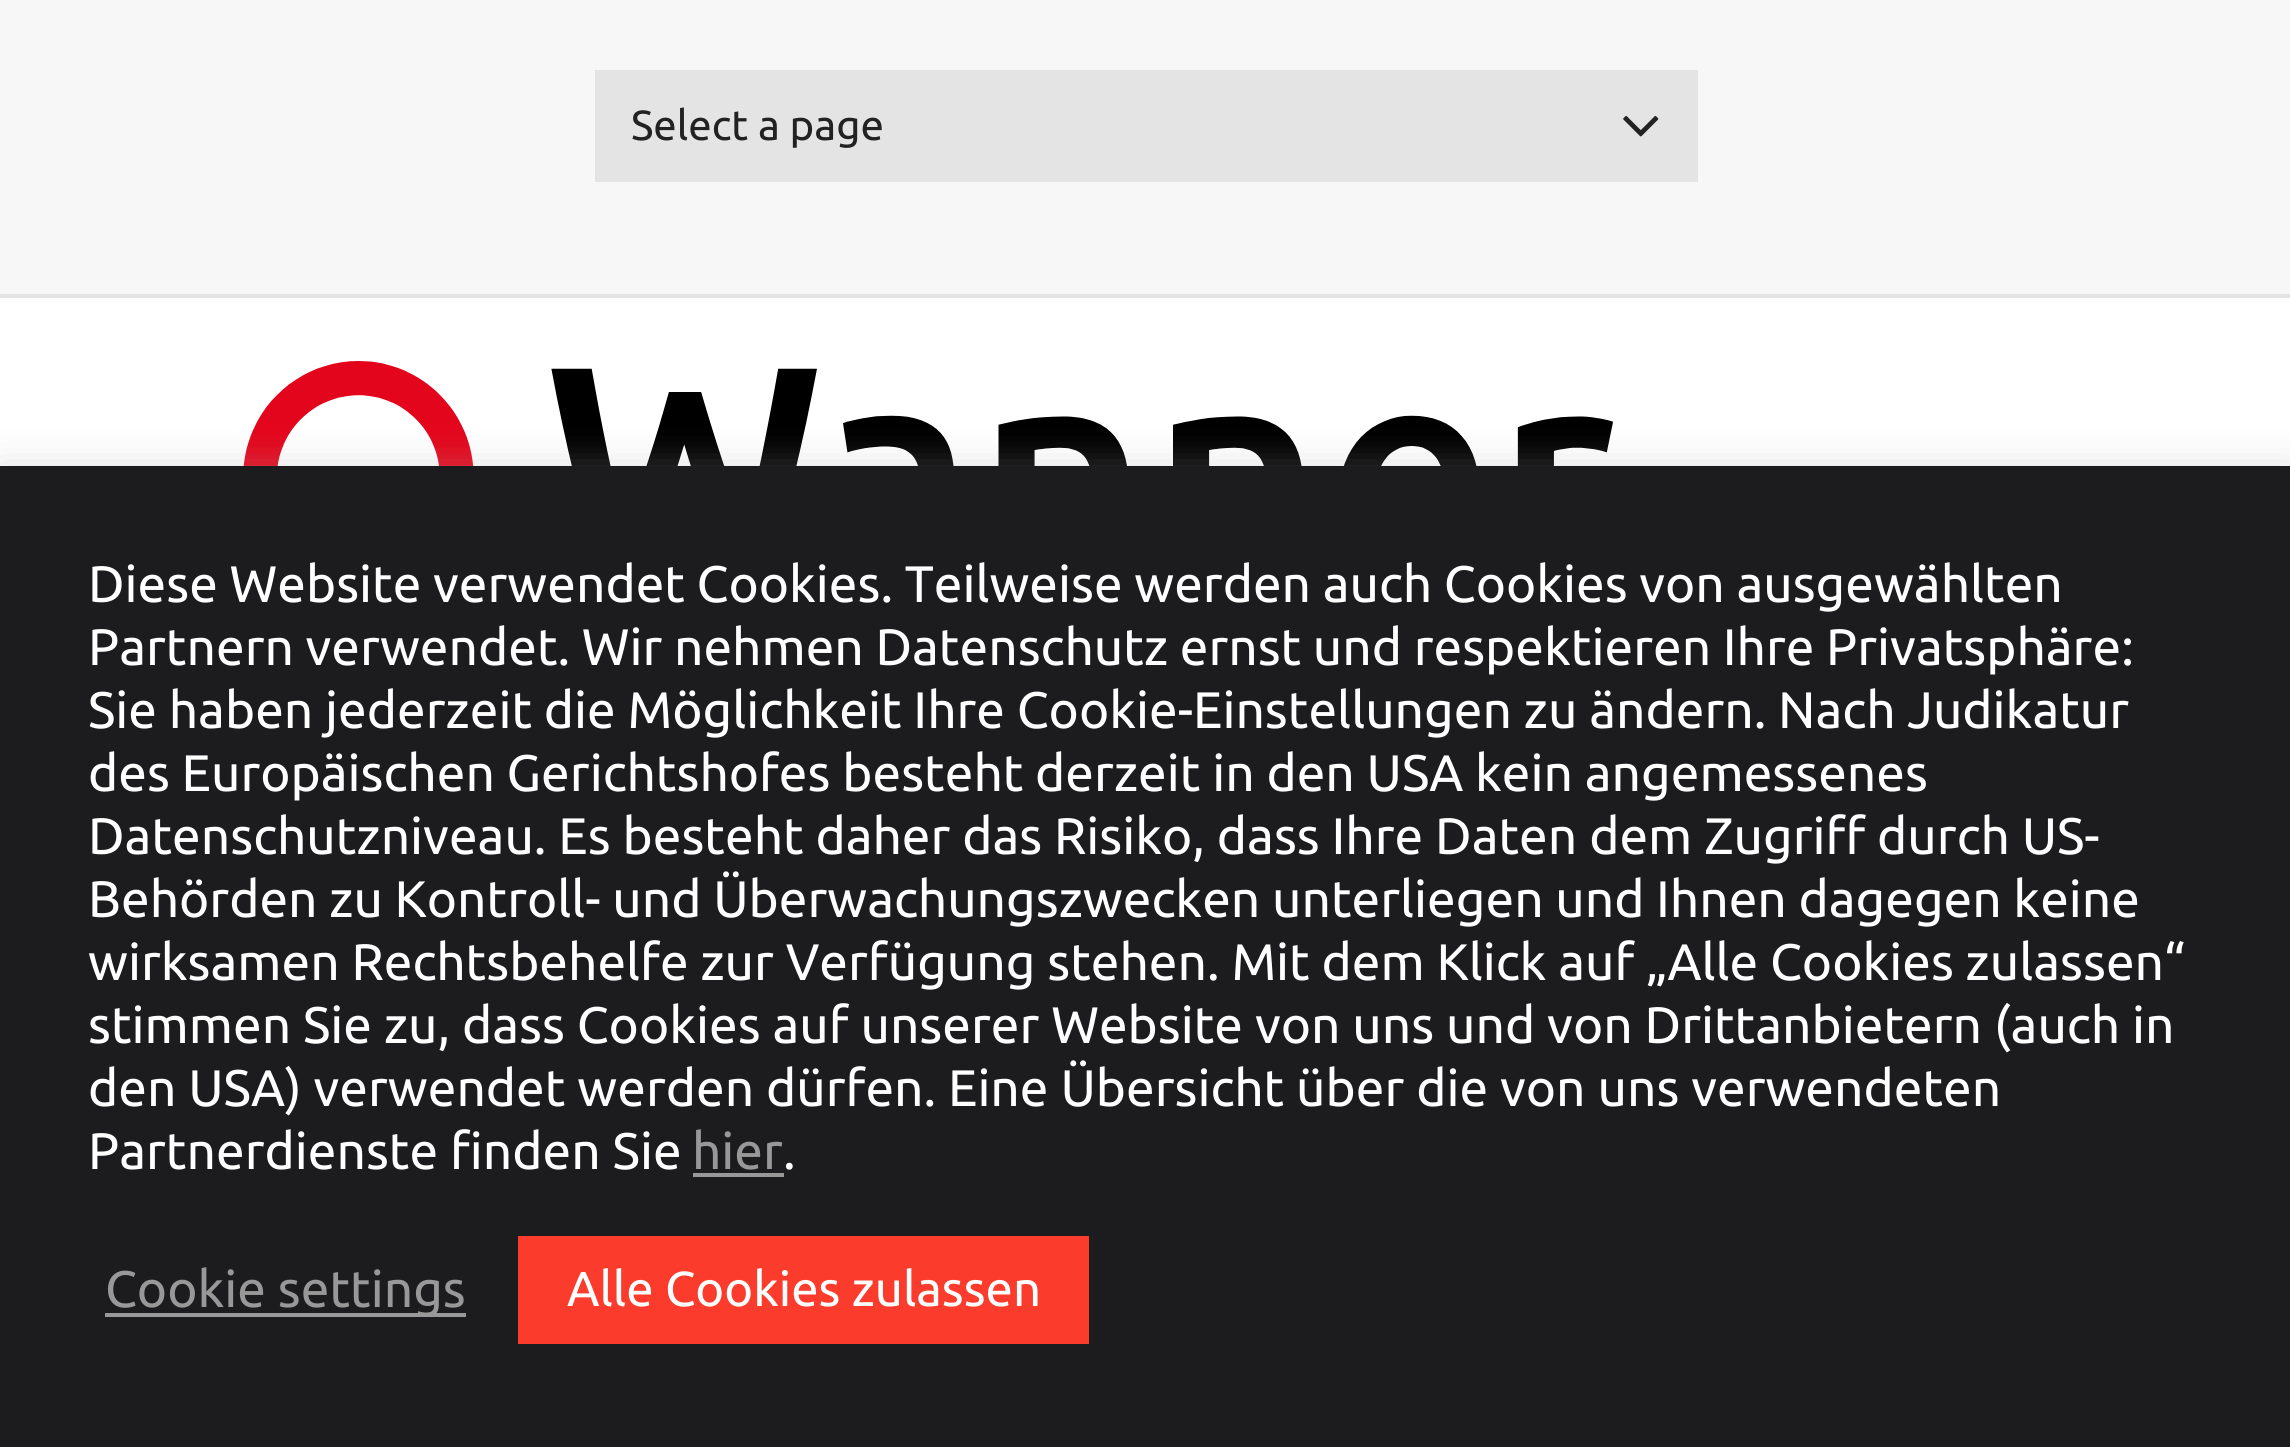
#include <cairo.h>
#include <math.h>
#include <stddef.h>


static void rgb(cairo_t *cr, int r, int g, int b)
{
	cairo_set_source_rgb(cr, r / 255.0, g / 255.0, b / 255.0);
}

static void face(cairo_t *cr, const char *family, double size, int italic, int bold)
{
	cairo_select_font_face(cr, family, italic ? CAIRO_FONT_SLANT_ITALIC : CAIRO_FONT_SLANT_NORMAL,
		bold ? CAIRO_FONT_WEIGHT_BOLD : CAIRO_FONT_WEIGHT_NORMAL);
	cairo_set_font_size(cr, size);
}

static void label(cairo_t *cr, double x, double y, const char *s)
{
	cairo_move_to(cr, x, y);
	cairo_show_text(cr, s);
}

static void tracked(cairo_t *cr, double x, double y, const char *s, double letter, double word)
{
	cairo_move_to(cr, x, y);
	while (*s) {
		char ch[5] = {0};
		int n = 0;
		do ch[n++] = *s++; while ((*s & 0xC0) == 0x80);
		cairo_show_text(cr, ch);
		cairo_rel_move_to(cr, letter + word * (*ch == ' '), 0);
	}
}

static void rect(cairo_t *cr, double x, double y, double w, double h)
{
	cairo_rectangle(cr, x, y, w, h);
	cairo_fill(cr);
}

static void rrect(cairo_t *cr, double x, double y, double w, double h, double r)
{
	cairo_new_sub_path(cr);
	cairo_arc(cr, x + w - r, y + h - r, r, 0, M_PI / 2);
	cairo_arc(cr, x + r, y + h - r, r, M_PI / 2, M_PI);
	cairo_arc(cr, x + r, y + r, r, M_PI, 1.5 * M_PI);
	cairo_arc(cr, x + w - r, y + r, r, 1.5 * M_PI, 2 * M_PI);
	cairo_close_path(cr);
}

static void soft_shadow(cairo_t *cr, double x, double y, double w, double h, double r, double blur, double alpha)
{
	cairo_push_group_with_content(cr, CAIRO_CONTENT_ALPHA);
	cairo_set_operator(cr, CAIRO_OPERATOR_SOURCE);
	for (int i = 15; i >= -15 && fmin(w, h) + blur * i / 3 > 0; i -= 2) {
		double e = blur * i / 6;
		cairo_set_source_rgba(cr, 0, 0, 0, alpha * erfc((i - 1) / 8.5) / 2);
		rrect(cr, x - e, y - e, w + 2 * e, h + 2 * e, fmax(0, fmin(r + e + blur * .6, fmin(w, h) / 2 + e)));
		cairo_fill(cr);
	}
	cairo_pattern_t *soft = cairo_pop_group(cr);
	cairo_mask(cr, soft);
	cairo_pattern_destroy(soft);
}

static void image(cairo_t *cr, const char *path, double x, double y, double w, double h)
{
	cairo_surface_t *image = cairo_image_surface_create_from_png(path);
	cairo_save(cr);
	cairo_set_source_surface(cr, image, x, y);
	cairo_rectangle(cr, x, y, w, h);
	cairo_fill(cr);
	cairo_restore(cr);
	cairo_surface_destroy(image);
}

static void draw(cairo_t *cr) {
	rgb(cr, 247, 247, 247);
	cairo_paint(cr);
	rgb(cr, 228, 228, 228);
	rect(cr, 0, 294, 2290, 4);
	rect(cr, 595, 70, 1103, 112);
	face(cr, "Ubuntu", 42, 0, 0);
	rgb(cr, 34, 34, 34);
	label(cr, 631, 140, "Select a page");
	image(cr, "image0.png", 1623, 116, 36, 21);
	rgb(cr, 255, 255, 255);
	rect(cr, 0, 298, 2290, 168);
	image(cr, "image1.png", 243, 361, 1370, 105);
	rgb(cr, 172, 171, 171);
	soft_shadow(cr, 0, 462, 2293, 984, 0, 17.5, 0.3);
	rgb(cr, 28, 28, 30);
	rect(cr, 0, 466, 2290, 981);
	face(cr, "Ubuntu", 51.35, 0, 0);
	rgb(cr, 255, 255, 255);
	tracked(cr, 88, 602, "Diese Website verwendet Cookies. Teilweise werden auch Cookies von ausgewählten", 0, -0.25);
	tracked(cr, 88, 665, "Partnern verwendet. Wir nehmen Datenschutz ernst und respektieren Ihre Privatsphäre:", 0, -0.25);
	tracked(cr, 88, 728, "Sie haben jederzeit die Möglichkeit Ihre Cookie-Einstellungen zu ändern. Nach Judikatur", 0, -0.1);
	tracked(cr, 88, 791, "des Europäischen Gerichtshofes besteht derzeit in den USA kein angemessenes", 0, -0.1);
	label(cr, 88, 854, "Datenschutzniveau. Es besteht daher das Risiko, dass Ihre Daten dem Zugriff durch US-");
	tracked(cr, 88, 917, "Behörden zu Kontroll- und Überwachungszwecken unterliegen und Ihnen dagegen keine", 0, -0.25);
	tracked(cr, 88, 980, "wirksamen Rechtsbehelfe zur Verfügung stehen. Mit dem Klick auf „Alle Cookies zulassen“", 0, -0.1);
	label(cr, 88, 1043, "stimmen Sie zu, dass Cookies auf unserer Website von uns und von Drittanbietern (auch in");
	label(cr, 88, 1106, "den USA) verwendet werden dürfen. Eine Übersicht über die von uns verwendeten");
	label(cr, 88, 1169, "Partnerdienste finden Sie");
	rgb(cr, 152, 152, 152);
	label(cr, 692, 1169, "hier");
	rect(cr, 693, 1173, 91, 4);
	rgb(cr, 255, 255, 255);
	label(cr, 783, 1169, ".");
	rgb(cr, 152, 152, 152);
	rect(cr, 105, 1313, 361, 4);
	label(cr, 105, 1307, "Cookie settings");
	rgb(cr, 251, 60, 45);
	rect(cr, 518, 1236, 571, 108);
	face(cr, "Ubuntu", 49, 0, 0);
	rgb(cr, 255, 255, 255);
	label(cr, 567, 1306, "Alle Cookies zulassen");
}

int main(void) {
	cairo_surface_t *surface = cairo_image_surface_create(CAIRO_FORMAT_RGB24, 2290, 1447);
	cairo_t *cr = cairo_create(surface);
	cairo_font_options_t *options = cairo_font_options_create();
	cairo_font_options_set_hint_metrics(options, CAIRO_HINT_METRICS_OFF);
	cairo_font_options_set_hint_style(options, CAIRO_HINT_STYLE_NONE);
	cairo_set_font_options(cr, options);
	cairo_set_miter_limit(cr, 4);
	draw(cr);
	cairo_surface_write_to_png(surface, "render.png");
	cairo_font_options_destroy(options);
	cairo_destroy(cr);
	cairo_surface_destroy(surface);
	return 0;
}
